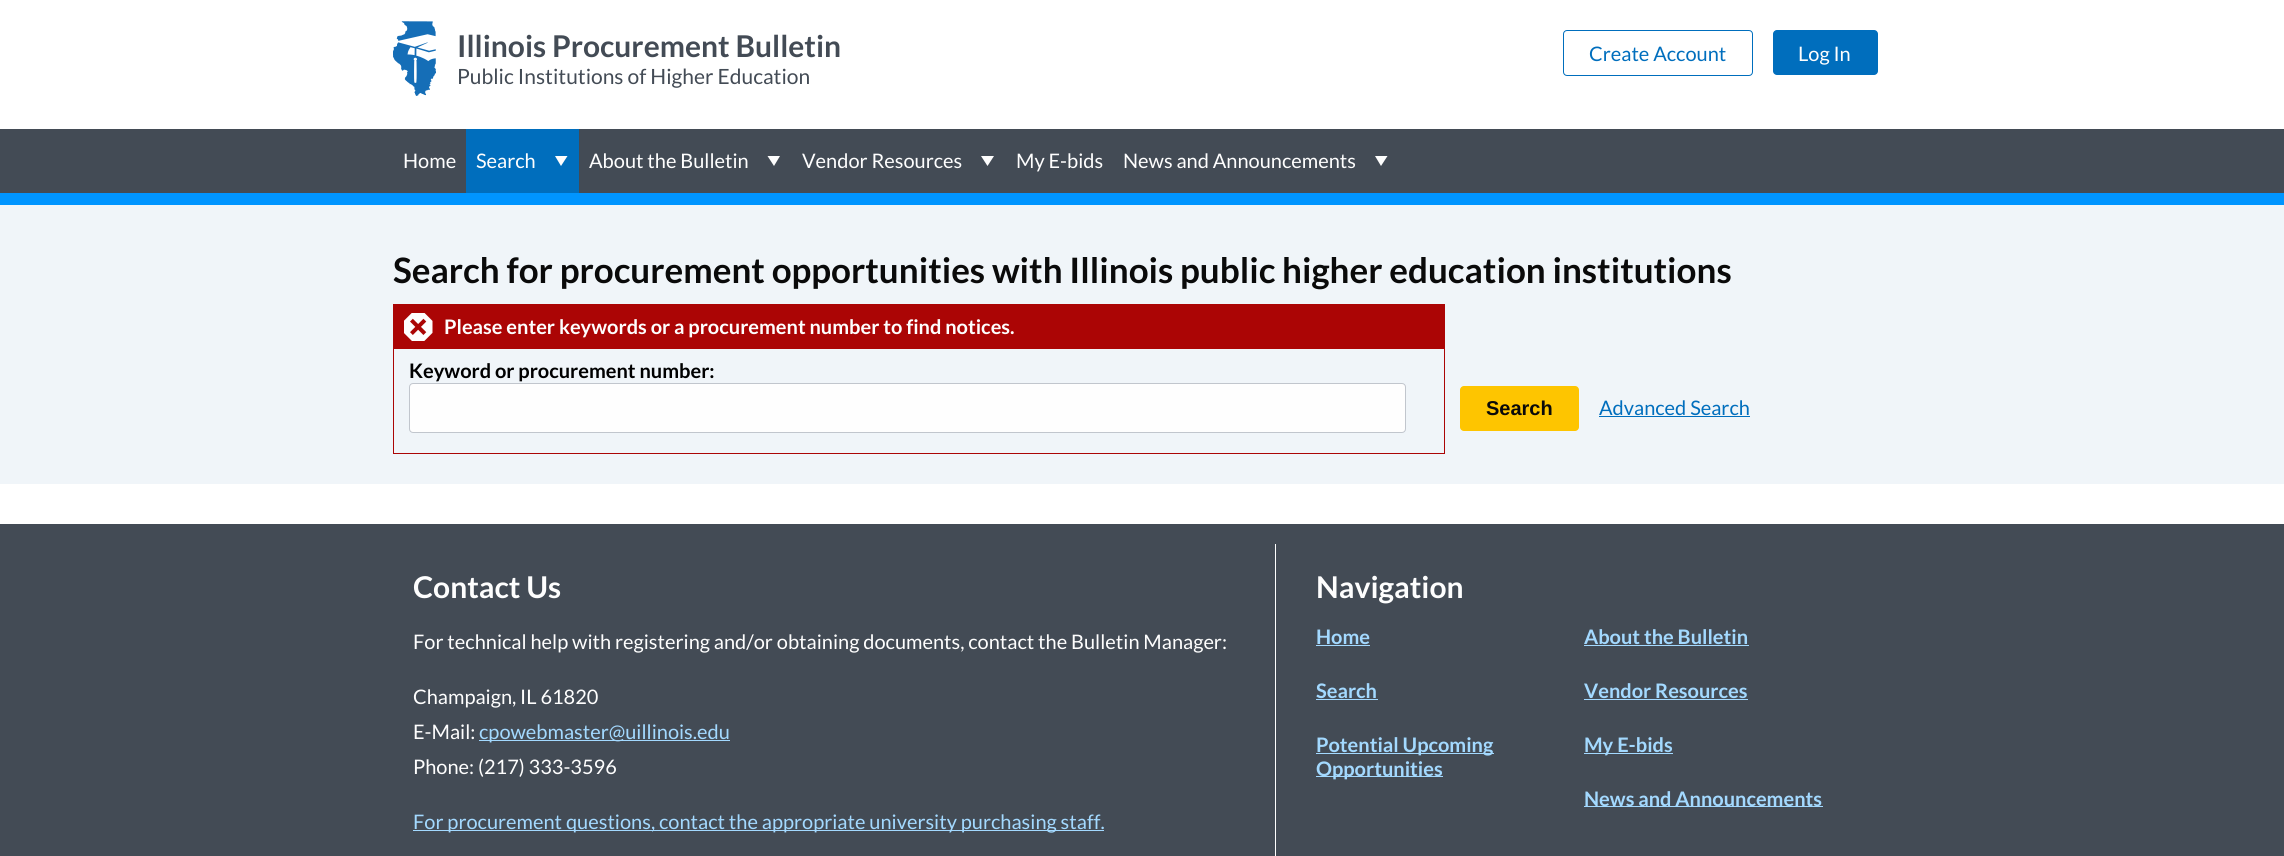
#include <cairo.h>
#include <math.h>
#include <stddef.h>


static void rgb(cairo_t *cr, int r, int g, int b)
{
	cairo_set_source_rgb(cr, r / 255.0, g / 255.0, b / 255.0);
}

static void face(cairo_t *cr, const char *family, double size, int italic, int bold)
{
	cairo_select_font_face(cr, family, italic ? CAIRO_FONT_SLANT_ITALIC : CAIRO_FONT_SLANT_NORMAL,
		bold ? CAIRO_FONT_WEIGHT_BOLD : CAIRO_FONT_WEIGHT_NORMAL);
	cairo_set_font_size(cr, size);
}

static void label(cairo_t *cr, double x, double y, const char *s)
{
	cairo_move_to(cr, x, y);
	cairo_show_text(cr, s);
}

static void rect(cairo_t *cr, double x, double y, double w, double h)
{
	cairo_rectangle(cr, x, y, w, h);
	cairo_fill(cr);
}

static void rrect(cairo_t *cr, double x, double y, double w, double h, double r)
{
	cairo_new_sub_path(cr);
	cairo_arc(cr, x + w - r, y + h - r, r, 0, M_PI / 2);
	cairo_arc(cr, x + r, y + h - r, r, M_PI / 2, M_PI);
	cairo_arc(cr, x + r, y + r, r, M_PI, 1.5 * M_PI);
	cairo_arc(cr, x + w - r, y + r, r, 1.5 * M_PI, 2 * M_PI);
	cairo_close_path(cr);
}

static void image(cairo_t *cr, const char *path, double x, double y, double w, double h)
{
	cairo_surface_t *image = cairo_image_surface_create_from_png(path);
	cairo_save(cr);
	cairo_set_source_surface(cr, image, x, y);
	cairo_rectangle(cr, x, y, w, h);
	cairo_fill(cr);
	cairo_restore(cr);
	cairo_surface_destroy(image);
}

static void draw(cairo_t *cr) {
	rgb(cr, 255, 255, 255);
	cairo_paint(cr);
	image(cr, "image0.png", 393, 21, 43, 75);
	face(cr, "Lato", 30, 0, 1);
	rgb(cr, 67, 75, 85);
	label(cr, 457, 57, "Illinois Procurement Bulletin");
	face(cr, "Lato", 21, 0, 0);
	label(cr, 457, 84, "Public Institutions of Higher Education");
	rrect(cr, 1563.5, 30.5, 189, 45, 3.5);
	rgb(cr, 0, 110, 189);
	cairo_set_line_width(cr, 1);
	cairo_stroke(cr);
	face(cr, "Lato", 20, 0, 0);
	label(cr, 1589, 61, "Create Account");
	rrect(cr, 1773, 30, 105, 45, 4);
	cairo_fill(cr);
	rgb(cr, 254, 254, 254);
	label(cr, 1798, 61, "Log In");
	rgb(cr, 67, 75, 85);
	rect(cr, 0, 129, 2284, 64);
	rgb(cr, 0, 149, 255);
	rect(cr, 0, 193, 2284, 12);
	rgb(cr, 254, 254, 254);
	label(cr, 403, 168, "Home");
	rgb(cr, 0, 110, 189);
	rect(cr, 466, 129, 113, 64);
	rgb(cr, 254, 254, 254);
	label(cr, 476, 168, "Search");
	cairo_new_path(cr);
	cairo_move_to(cr, 555, 156);
	cairo_line_to(cr, 567.5, 156);
	cairo_line_to(cr, 561, 166);
	cairo_close_path(cr);
	cairo_fill(cr);
	label(cr, 589, 168, "About the Bulletin");
	cairo_new_path(cr);
	cairo_move_to(cr, 767.5, 156);
	cairo_line_to(cr, 780, 156);
	cairo_line_to(cr, 774, 166);
	cairo_close_path(cr);
	cairo_fill(cr);
	label(cr, 802, 168, "Vendor Resources");
	cairo_new_path(cr);
	cairo_move_to(cr, 981, 156);
	cairo_line_to(cr, 994, 156);
	cairo_line_to(cr, 987.5, 166);
	cairo_close_path(cr);
	cairo_fill(cr);
	label(cr, 1016, 168, "My E-bids");
	label(cr, 1123, 168, "News and Announcements");
	cairo_new_path(cr);
	cairo_move_to(cr, 1375, 156);
	cairo_line_to(cr, 1387.5, 156);
	cairo_line_to(cr, 1381, 166);
	cairo_close_path(cr);
	cairo_fill(cr);
	rgb(cr, 240, 245, 249);
	rect(cr, 0, 205, 2284, 279);
	face(cr, "Lato", 35, 0, 1);
	rgb(cr, 10, 10, 10);
	label(cr, 393, 283, "Search for procurement opportunities with Illinois public higher education institutions");
	cairo_rectangle(cr, 393.5, 304.5, 1051, 149);
	rgb(cr, 171, 5, 5);
	cairo_stroke(cr);
	rect(cr, 394, 305, 1050, 44);
	image(cr, "image1.png", 404, 313, 29, 28);
	face(cr, "Lato", 20, 0, 1);
	rgb(cr, 254, 254, 254);
	label(cr, 444, 334, "Please enter keywords or a procurement number to find notices.");
	rgb(cr, 0, 0, 0);
	label(cr, 409, 378, "Keyword or procurement number:");
	rgb(cr, 254, 254, 254);
	rrect(cr, 409.5, 383.5, 996, 49, 3.5);
	cairo_fill_preserve(cr);
	rgb(cr, 193, 198, 205);
	cairo_stroke(cr);
	rgb(cr, 254, 197, 0);
	rrect(cr, 1460, 386, 119, 45, 4);
	cairo_fill(cr);
	face(cr, "Liberation Sans", 20, 0, 1);
	rgb(cr, 10, 10, 10);
	label(cr, 1486, 415, "Search");
	face(cr, "Lato", 20, 0, 0);
	rgb(cr, 0, 110, 189);
	label(cr, 1599, 415, "Advanced Search");
	rect(cr, 1599, 416, 151, 1);
	rgb(cr, 67, 75, 85);
	rect(cr, 0, 524, 2284, 332);
	face(cr, "Lato", 30, 0, 1);
	rgb(cr, 254, 254, 254);
	label(cr, 413, 598, "Contact Us");
	face(cr, "Lato", 20, 0, 0);
	label(cr, 413, 649, "For technical help with registering and/or obtaining documents, contact the Bulletin Manager:");
	label(cr, 413, 704, "Champaign, IL 61820");
	label(cr, 413, 739, "E-Mail:");
	rgb(cr, 163, 217, 255);
	rect(cr, 479, 740, 251, 1);
	label(cr, 479, 739, "cpowebmaster@uillinois.edu");
	rgb(cr, 254, 254, 254);
	label(cr, 413, 774, "Phone: (217) 333-3596");
	rgb(cr, 163, 217, 255);
	rect(cr, 413, 830, 691, 1);
	label(cr, 413, 829, "For procurement questions, contact the appropriate university purchasing staff.");
	rgb(cr, 254, 254, 254);
	rect(cr, 1275, 544, 1, 312);
	face(cr, "Lato", 30, 0, 1);
	label(cr, 1316, 598, "Navigation");
	face(cr, "Lato", 20, 0, 1);
	rgb(cr, 163, 217, 255);
	label(cr, 1316, 644, "Home");
	rect(cr, 1316, 645, 54, 1);
	label(cr, 1584, 644, "About the Bulletin");
	rect(cr, 1584, 645, 165, 1);
	label(cr, 1316, 698, "Search");
	rect(cr, 1316, 699, 62, 1);
	label(cr, 1584, 698, "Vendor Resources");
	rect(cr, 1584, 699, 164, 1);
	rect(cr, 1316, 753, 178, 1);
	label(cr, 1316, 752, "Potential Upcoming");
	rect(cr, 1316, 776, 127, 1);
	label(cr, 1316, 776, "Opportunities");
	rect(cr, 1584, 753, 89, 1);
	label(cr, 1584, 752, "My E-bids");
	rect(cr, 1584, 806, 239, 1);
	label(cr, 1584, 806, "News and Announcements");
}

int main(void) {
	cairo_surface_t *surface = cairo_image_surface_create(CAIRO_FORMAT_RGB24, 2284, 856);
	cairo_t *cr = cairo_create(surface);
	cairo_font_options_t *options = cairo_font_options_create();
	cairo_font_options_set_hint_metrics(options, CAIRO_HINT_METRICS_OFF);
	cairo_font_options_set_hint_style(options, CAIRO_HINT_STYLE_NONE);
	cairo_set_font_options(cr, options);
	cairo_set_miter_limit(cr, 4);
	draw(cr);
	cairo_surface_write_to_png(surface, "render.png");
	cairo_font_options_destroy(options);
	cairo_destroy(cr);
	cairo_surface_destroy(surface);
	return 0;
}
